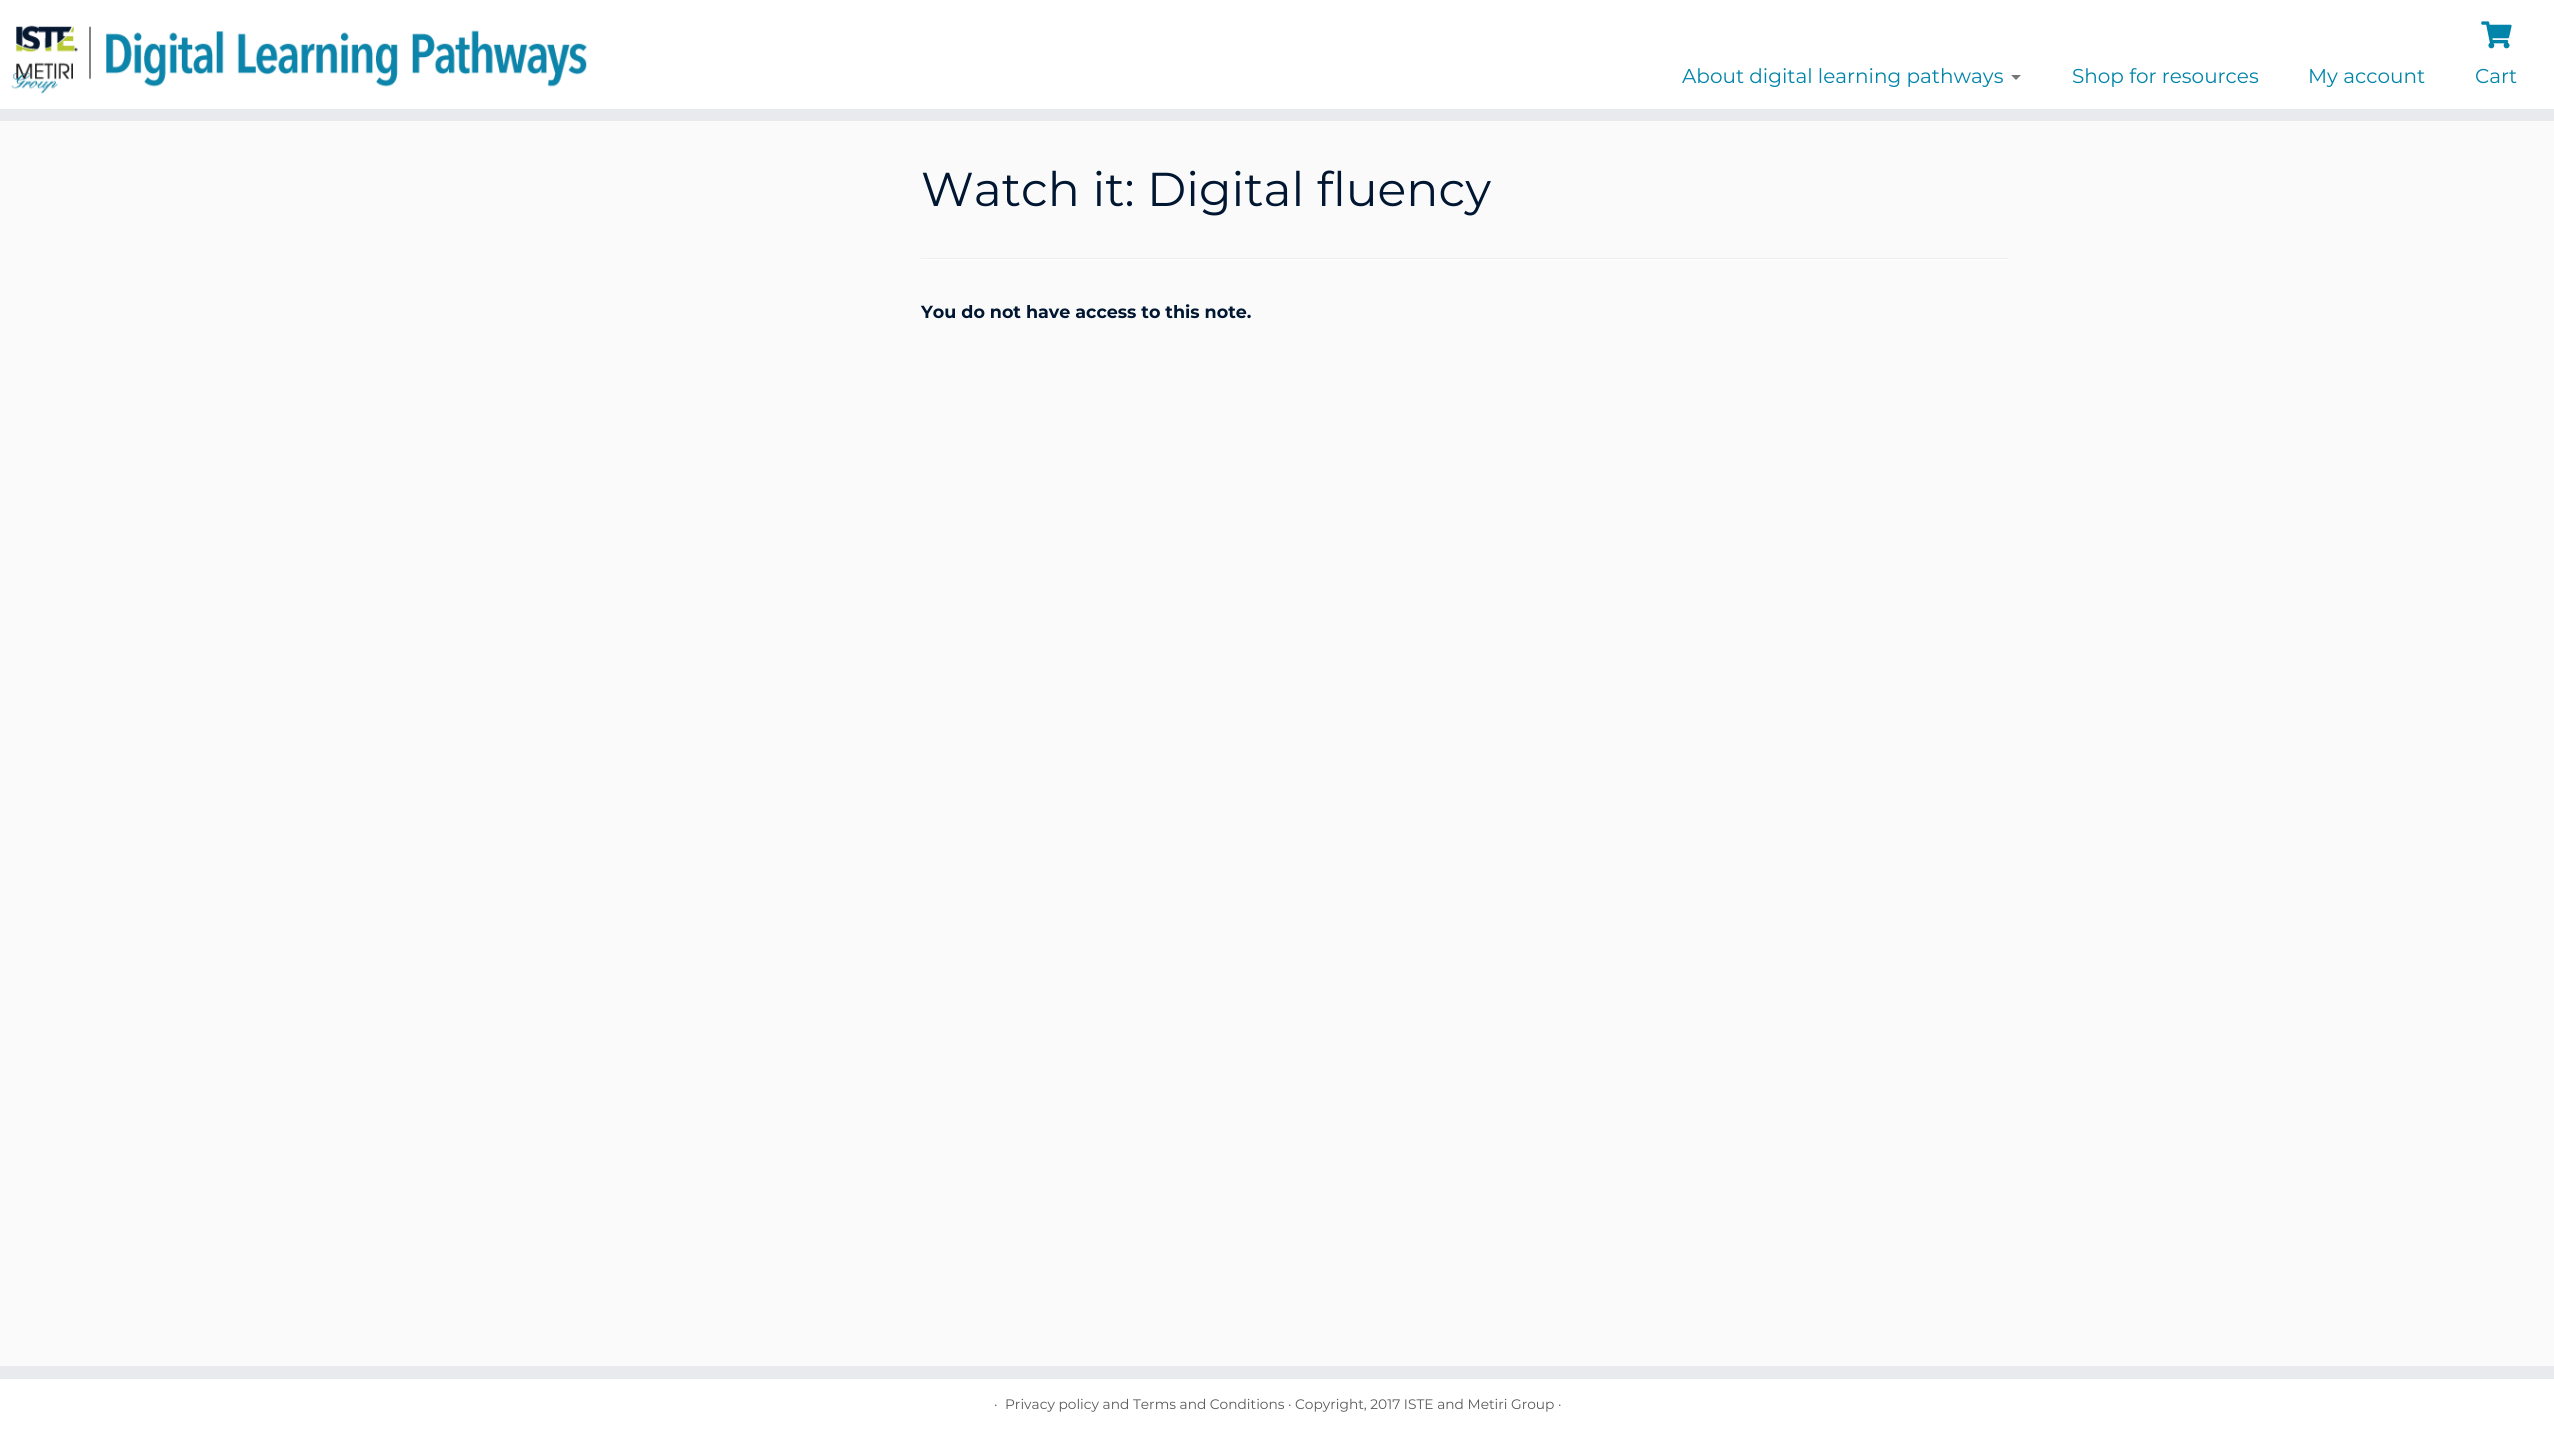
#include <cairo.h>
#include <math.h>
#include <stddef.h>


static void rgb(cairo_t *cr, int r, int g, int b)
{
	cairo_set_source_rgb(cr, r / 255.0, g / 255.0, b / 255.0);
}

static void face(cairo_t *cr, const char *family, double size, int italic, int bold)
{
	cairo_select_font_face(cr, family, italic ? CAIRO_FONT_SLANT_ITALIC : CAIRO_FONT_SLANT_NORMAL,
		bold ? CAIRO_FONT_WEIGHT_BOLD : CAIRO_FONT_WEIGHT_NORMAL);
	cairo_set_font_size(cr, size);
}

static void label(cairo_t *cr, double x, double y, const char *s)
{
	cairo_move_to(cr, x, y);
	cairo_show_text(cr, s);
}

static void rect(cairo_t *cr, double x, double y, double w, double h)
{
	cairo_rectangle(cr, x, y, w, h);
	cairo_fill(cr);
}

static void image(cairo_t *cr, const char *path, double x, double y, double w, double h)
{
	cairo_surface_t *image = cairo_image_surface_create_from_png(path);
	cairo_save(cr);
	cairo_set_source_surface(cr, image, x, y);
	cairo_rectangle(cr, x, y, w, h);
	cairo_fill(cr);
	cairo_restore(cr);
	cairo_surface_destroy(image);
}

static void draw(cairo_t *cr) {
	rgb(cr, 250, 250, 250);
	cairo_paint(cr);
	rgb(cr, 255, 255, 255);
	rect(cr, 0, 0, 2554, 109);
	rgb(cr, 233, 234, 238);
	rect(cr, 0, 109, 2554, 12);
	image(cr, "image0.png", 11, 25, 576, 69);
	image(cr, "image1.png", 2481, 21, 31, 28);
	face(cr, "Montserrat", 20, 0, 0);
	rgb(cr, 0, 132, 169);
	label(cr, 1682, 83, "About digital learning pathways");
	rgb(cr, 119, 119, 119);
	cairo_new_path(cr);
	cairo_move_to(cr, 2011, 75);
	cairo_line_to(cr, 2021, 75);
	cairo_line_to(cr, 2016, 80);
	cairo_close_path(cr);
	cairo_fill(cr);
	rgb(cr, 0, 132, 169);
	label(cr, 2072, 83, "Shop for resources");
	label(cr, 2308, 83, "My account");
	label(cr, 2475, 83, "Cart");
	face(cr, "Montserrat", 47.5, 0, 0);
	rgb(cr, 0, 22, 49);
	label(cr, 921, 206, "Watch it: Digital fluency");
	rgb(cr, 238, 238, 238);
	rect(cr, 921, 258, 1088, 1);
	rgb(cr, 255, 255, 255);
	rect(cr, 921, 259, 1088, 1);
	face(cr, "Montserrat", 17.5, 0, 1);
	rgb(cr, 0, 22, 49);
	label(cr, 921, 318, "You do not have access to this note.");
	rgb(cr, 233, 234, 238);
	rect(cr, 0, 1366, 2554, 13);
	rgb(cr, 255, 255, 255);
	rect(cr, 0, 1379, 2554, 64);
	face(cr, "Montserrat", 13.75, 0, 0);
	rgb(cr, 90, 90, 90);
	label(cr, 994, 1409, "·");
	label(cr, 1005, 1409, "Privacy policy and Terms and Conditions · Copyright, 2017 ISTE and Metiri Group ·");
}

int main(void) {
	cairo_surface_t *surface = cairo_image_surface_create(CAIRO_FORMAT_RGB24, 2554, 1443);
	cairo_t *cr = cairo_create(surface);
	cairo_font_options_t *options = cairo_font_options_create();
	cairo_font_options_set_hint_metrics(options, CAIRO_HINT_METRICS_OFF);
	cairo_font_options_set_hint_style(options, CAIRO_HINT_STYLE_NONE);
	cairo_set_font_options(cr, options);
	cairo_set_miter_limit(cr, 4);
	draw(cr);
	cairo_surface_write_to_png(surface, "render.png");
	cairo_font_options_destroy(options);
	cairo_destroy(cr);
	cairo_surface_destroy(surface);
	return 0;
}
